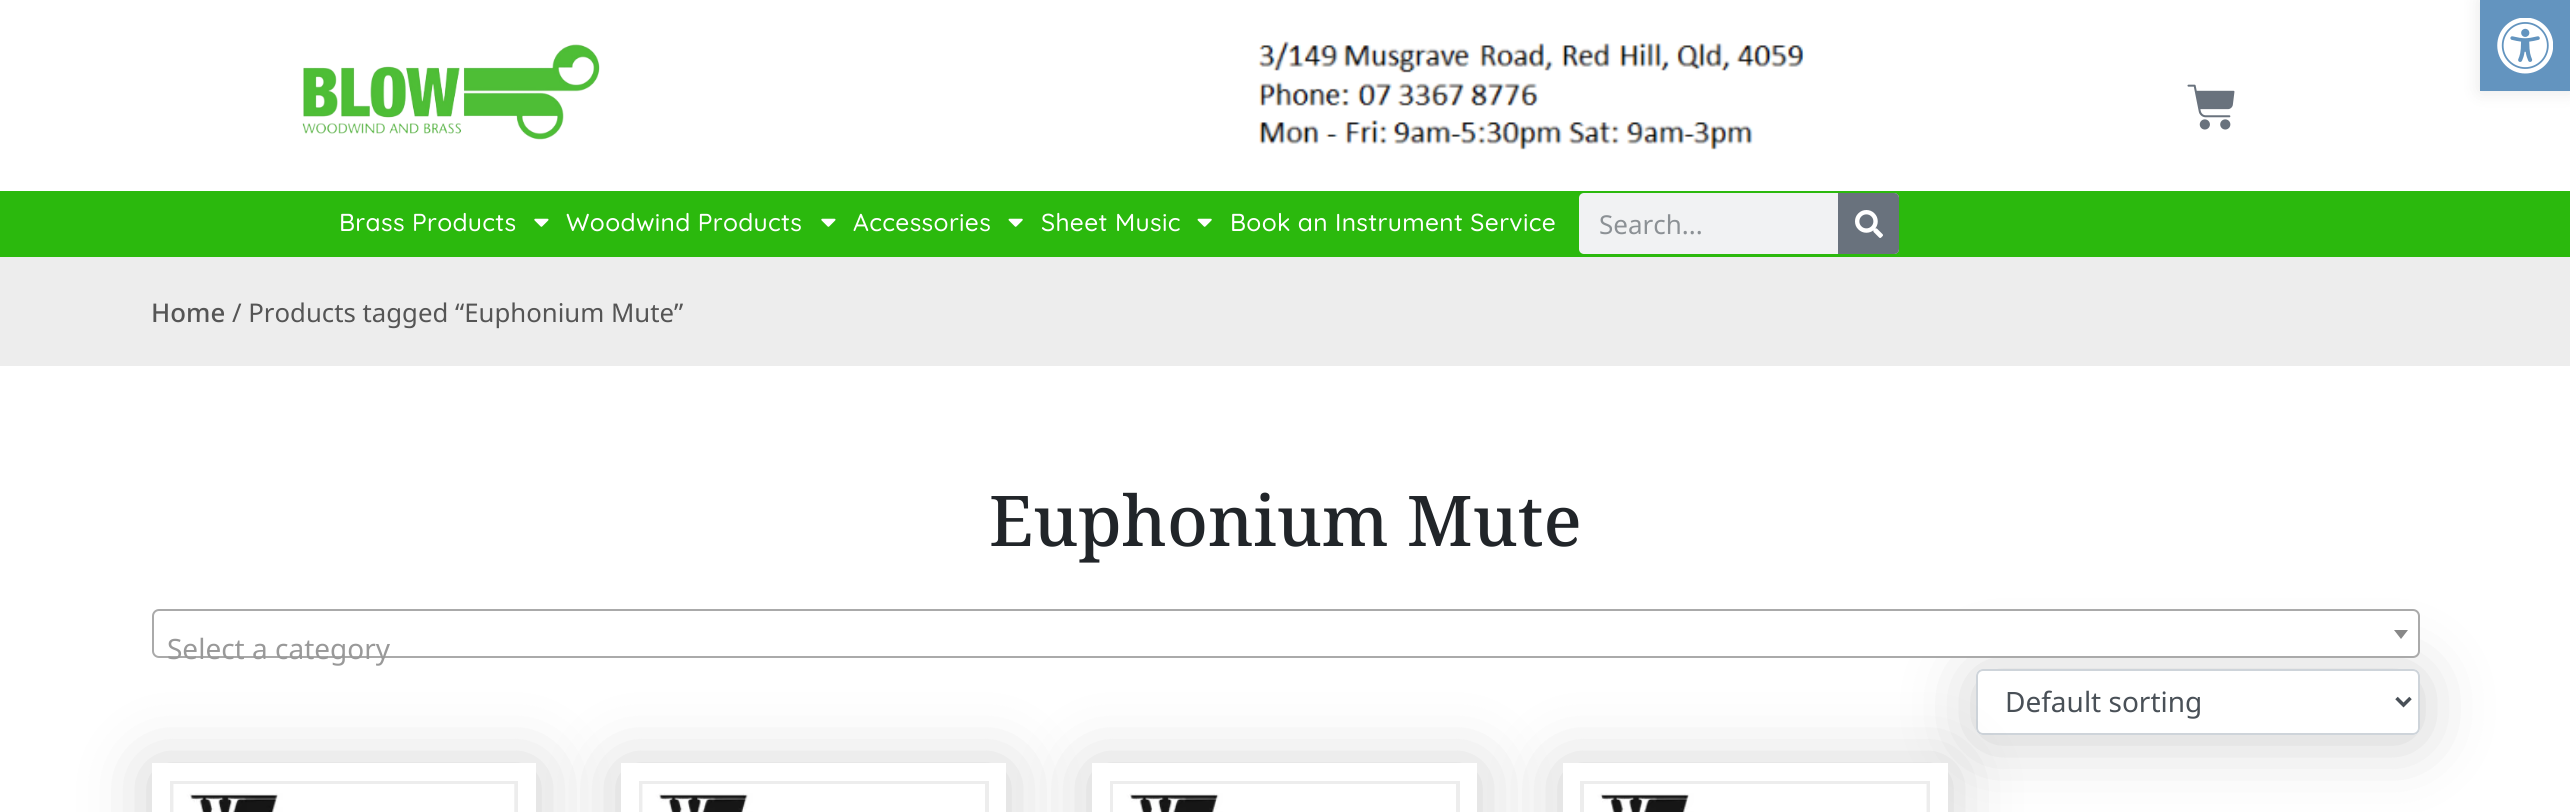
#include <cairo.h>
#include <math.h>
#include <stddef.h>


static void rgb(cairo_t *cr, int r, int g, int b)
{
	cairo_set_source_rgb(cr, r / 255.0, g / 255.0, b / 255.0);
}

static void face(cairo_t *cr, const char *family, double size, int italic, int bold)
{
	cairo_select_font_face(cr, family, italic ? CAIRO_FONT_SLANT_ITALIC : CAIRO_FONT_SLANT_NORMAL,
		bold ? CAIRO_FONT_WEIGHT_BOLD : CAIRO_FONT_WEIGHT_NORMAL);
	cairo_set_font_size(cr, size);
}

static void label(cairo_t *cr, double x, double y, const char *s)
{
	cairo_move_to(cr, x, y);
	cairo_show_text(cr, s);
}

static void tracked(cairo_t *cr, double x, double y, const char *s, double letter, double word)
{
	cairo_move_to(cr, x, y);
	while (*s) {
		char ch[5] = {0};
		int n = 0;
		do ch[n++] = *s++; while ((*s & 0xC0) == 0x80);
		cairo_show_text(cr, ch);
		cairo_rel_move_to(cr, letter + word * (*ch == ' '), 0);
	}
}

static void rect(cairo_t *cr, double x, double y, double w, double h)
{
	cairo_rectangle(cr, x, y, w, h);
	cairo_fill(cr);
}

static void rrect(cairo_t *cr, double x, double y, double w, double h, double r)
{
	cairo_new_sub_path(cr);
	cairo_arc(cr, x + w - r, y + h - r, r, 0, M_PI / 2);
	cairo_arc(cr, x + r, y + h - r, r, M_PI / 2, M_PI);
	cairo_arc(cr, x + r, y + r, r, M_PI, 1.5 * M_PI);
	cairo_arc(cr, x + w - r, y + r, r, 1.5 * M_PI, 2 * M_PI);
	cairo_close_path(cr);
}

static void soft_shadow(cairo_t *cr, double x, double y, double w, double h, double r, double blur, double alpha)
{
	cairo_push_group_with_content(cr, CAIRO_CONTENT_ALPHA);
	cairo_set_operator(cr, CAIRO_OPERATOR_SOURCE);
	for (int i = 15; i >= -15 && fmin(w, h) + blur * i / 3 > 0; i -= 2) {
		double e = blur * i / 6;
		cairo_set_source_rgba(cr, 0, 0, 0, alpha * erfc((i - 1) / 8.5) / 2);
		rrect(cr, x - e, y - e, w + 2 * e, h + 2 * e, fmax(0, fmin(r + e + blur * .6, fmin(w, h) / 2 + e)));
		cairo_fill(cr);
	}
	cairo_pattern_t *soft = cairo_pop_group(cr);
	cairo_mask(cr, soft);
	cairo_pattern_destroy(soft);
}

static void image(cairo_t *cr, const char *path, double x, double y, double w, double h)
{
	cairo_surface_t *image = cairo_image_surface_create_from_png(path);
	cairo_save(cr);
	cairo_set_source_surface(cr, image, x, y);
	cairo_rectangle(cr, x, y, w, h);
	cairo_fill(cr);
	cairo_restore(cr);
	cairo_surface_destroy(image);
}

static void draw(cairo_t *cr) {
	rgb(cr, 255, 255, 255);
	cairo_paint(cr);
	rgb(cr, 0, 0, 0);
	soft_shadow(cr, 2480, 0, 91, 91, 0, 9, 0.1);
	rgb(cr, 99, 148, 191);
	rect(cr, 2480, 0, 90, 91);
	image(cr, "image0.png", 2497, 18, 56, 56);
	image(cr, "image1.png", 302, 44, 298, 96);
	image(cr, "image2.png", 1258, 41, 547, 109);
	image(cr, "image3.png", 2187, 84, 48, 46);
	rgb(cr, 43, 185, 13);
	rect(cr, 0, 191, 2570, 66);
	face(cr, "Quicksand Medium", 24.5, 0, 0);
	rgb(cr, 255, 255, 255);
	tracked(cr, 339, 231, "Brass Products", 0.35, 0);
	image(cr, "image4.png", 534, 218, 15, 9);
	tracked(cr, 566, 231, "Woodwind Products", 0.35, 0);
	image(cr, "image4.png", 821, 218, 15, 9);
	tracked(cr, 853, 231, "Accessories", 0.35, 0);
	image(cr, "image5.png", 1008, 218, 15, 9);
	tracked(cr, 1041, 231, "Sheet Music", 0.35, 0);
	image(cr, "image5.png", 1197, 218, 15, 9);
	tracked(cr, 1230, 231, "Book an Instrument Service", 0.35, 0);
	rgb(cr, 241, 242, 243);
	rrect(cr, 1579, 193, 320, 61, 5);
	cairo_fill(cr);
	face(cr, "Noto Sans", 26, 0, 0);
	rgb(cr, 140, 145, 149);
	label(cr, 1599, 234, "Search...");
	rgb(cr, 105, 114, 125);
	cairo_new_path(cr);
	cairo_move_to(cr, 1838, 193);
	cairo_line_to(cr, 1894, 193);
	cairo_curve_to(cr, 1897, 193, 1899, 195, 1899, 198);
	cairo_line_to(cr, 1899, 249);
	cairo_curve_to(cr, 1899, 252, 1897, 254, 1894, 254);
	cairo_line_to(cr, 1838, 254);
	cairo_close_path(cr);
	cairo_fill(cr);
	image(cr, "image6.png", 1855, 210, 28, 28);
	rgb(cr, 237, 237, 237);
	rect(cr, 0, 257, 2570, 109);
	face(cr, "Noto Sans Medium", 25.75, 0, 0);
	rgb(cr, 85, 85, 85);
	label(cr, 151, 322, "Home");
	face(cr, "Noto Sans", 25.75, 0, 0);
	label(cr, 232, 322, "/ Products tagged “Euphonium Mute”");
	face(cr, "Noto Serif Medium", 70, 0, 0);
	rgb(cr, 33, 37, 41);
	label(cr, 989, 546, "Euphonium Mute");
	cairo_save(cr);
	cairo_set_fill_rule(cr, CAIRO_FILL_RULE_EVEN_ODD);
	cairo_new_path(cr);
	cairo_move_to(cr, 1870, 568);
	cairo_line_to(cr, 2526, 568);
	cairo_line_to(cr, 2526, 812);
	cairo_line_to(cr, 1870, 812);
	cairo_close_path(cr);
	cairo_move_to(cr, 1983, 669);
	cairo_line_to(cr, 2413, 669);
	cairo_curve_to(cr, 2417, 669, 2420, 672, 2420, 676);
	cairo_line_to(cr, 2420, 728);
	cairo_curve_to(cr, 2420, 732, 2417, 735, 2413, 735);
	cairo_line_to(cr, 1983, 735);
	cairo_curve_to(cr, 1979, 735, 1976, 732, 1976, 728);
	cairo_line_to(cr, 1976, 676);
	cairo_curve_to(cr, 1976, 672, 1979, 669, 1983, 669);
	cairo_close_path(cr);
	cairo_clip(cr);
	rgb(cr, 0, 0, 0);
	soft_shadow(cr, 1976, 674, 444, 66, 7, 35, 0.2);
	cairo_restore(cr);
	rgb(cr, 255, 255, 255);
	rrect(cr, 153, 610, 2266, 47, 6);
	cairo_fill_preserve(cr);
	rgb(cr, 170, 170, 170);
	cairo_stroke(cr);
	rgb(cr, 136, 136, 136);
	cairo_new_path(cr);
	cairo_move_to(cr, 2394, 630);
	cairo_line_to(cr, 2408, 630);
	cairo_line_to(cr, 2401, 639);
	cairo_close_path(cr);
	cairo_fill(cr);
	face(cr, "Noto Sans", 28, 0, 0);
	rgb(cr, 153, 153, 153);
	label(cr, 167, 659, "Select a category");
	rgb(cr, 0, 0, 0);
	soft_shadow(cr, 152, 768, 384, 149, 0, 35, 0.2);
	rgb(cr, 255, 255, 255);
	rect(cr, 152, 763, 384, 49);
	cairo_rectangle(cr, 172, 783, 344, 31);
	rgb(cr, 237, 237, 237);
	cairo_set_line_width(cr, 4);
	cairo_stroke(cr);
	image(cr, "image7.png", 173, 784, 342, 28);
	rgb(cr, 0, 0, 0);
	soft_shadow(cr, 621, 768, 385, 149, 0, 35, 0.2);
	rgb(cr, 255, 255, 255);
	rect(cr, 621, 763, 385, 49);
	cairo_rectangle(cr, 641, 783, 346, 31);
	rgb(cr, 237, 237, 237);
	cairo_stroke(cr);
	image(cr, "image8.png", 642, 784, 343, 28);
	cairo_save(cr);
	cairo_set_fill_rule(cr, CAIRO_FILL_RULE_EVEN_ODD);
	cairo_new_path(cr);
	cairo_move_to(cr, 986, 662);
	cairo_line_to(cr, 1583, 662);
	cairo_line_to(cr, 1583, 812);
	cairo_line_to(cr, 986, 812);
	cairo_close_path(cr);
	cairo_move_to(cr, 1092, 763);
	cairo_line_to(cr, 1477, 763);
	cairo_line_to(cr, 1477, 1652);
	cairo_line_to(cr, 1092, 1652);
	cairo_close_path(cr);
	cairo_clip(cr);
	rgb(cr, 0, 0, 0);
	soft_shadow(cr, 1092, 768, 385, 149, 0, 35, 0.2);
	cairo_restore(cr);
	cairo_rectangle(cr, 1112, 783, 346, 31);
	cairo_stroke(cr);
	image(cr, "image9.png", 1113, 784, 343, 28);
	rrect(cr, 1977, 670, 442, 64, 6);
	rgb(cr, 206, 212, 218);
	cairo_set_line_width(cr, 2);
	cairo_stroke(cr);
	rgb(cr, 0, 0, 0);
	soft_shadow(cr, 1563, 768, 385, 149, 0, 35, 0.2);
	rgb(cr, 255, 255, 255);
	rect(cr, 1563, 763, 385, 49);
	cairo_rectangle(cr, 1582, 783, 346, 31);
	rgb(cr, 237, 237, 237);
	cairo_set_line_width(cr, 4);
	cairo_stroke(cr);
	image(cr, "image10.png", 1584, 784, 343, 28);
	cairo_new_path(cr);
	cairo_move_to(cr, 2396.5, 698);
	cairo_line_to(cr, 2403.5, 705);
	cairo_line_to(cr, 2410.5, 698);
	rgb(cr, 73, 80, 87);
	cairo_set_line_width(cr, 3.5);
	cairo_stroke(cr);
	label(cr, 2005, 712, "Default sorting");
}

int main(void) {
	cairo_surface_t *surface = cairo_image_surface_create(CAIRO_FORMAT_RGB24, 2570, 812);
	cairo_t *cr = cairo_create(surface);
	cairo_font_options_t *options = cairo_font_options_create();
	cairo_font_options_set_hint_metrics(options, CAIRO_HINT_METRICS_OFF);
	cairo_font_options_set_hint_style(options, CAIRO_HINT_STYLE_NONE);
	cairo_set_font_options(cr, options);
	cairo_set_miter_limit(cr, 4);
	draw(cr);
	cairo_surface_write_to_png(surface, "render.png");
	cairo_font_options_destroy(options);
	cairo_destroy(cr);
	cairo_surface_destroy(surface);
	return 0;
}
